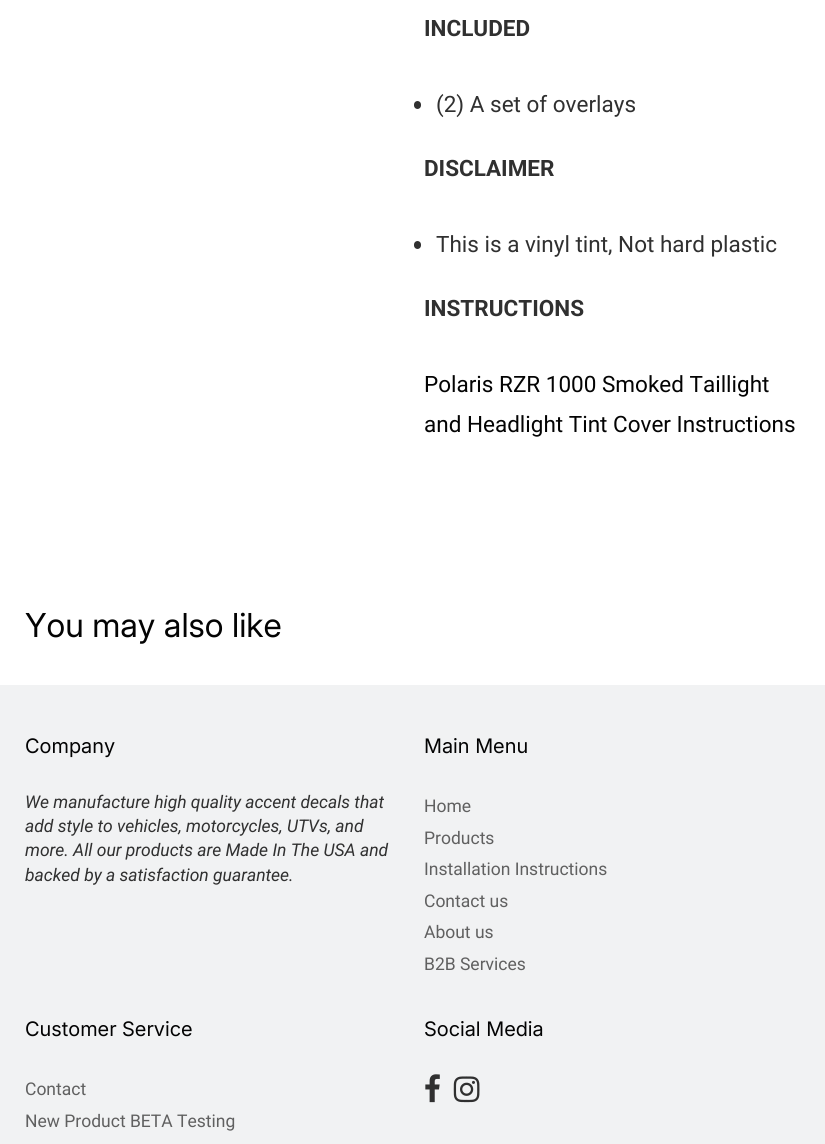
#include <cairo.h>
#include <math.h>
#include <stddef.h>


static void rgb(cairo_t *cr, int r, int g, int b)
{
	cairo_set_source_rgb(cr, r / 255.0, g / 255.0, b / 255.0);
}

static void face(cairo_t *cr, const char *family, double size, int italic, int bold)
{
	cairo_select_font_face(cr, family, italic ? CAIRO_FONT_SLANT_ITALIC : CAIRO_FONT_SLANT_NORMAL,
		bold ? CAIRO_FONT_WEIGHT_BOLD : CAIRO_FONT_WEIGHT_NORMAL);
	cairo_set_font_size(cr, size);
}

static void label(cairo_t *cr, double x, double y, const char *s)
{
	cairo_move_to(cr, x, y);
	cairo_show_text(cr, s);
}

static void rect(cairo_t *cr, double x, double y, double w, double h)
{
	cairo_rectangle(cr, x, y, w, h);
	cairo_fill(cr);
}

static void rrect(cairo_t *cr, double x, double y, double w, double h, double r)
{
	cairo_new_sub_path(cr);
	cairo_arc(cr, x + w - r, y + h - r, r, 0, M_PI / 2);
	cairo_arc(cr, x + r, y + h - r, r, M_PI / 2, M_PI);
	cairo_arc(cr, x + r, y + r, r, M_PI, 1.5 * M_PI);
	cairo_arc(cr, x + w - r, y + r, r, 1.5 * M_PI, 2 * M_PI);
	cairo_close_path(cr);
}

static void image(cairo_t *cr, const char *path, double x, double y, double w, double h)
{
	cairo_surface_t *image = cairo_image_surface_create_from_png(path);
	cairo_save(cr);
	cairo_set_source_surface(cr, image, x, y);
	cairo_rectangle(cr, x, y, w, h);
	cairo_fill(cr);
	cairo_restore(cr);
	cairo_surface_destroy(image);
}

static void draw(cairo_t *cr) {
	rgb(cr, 255, 255, 255);
	cairo_paint(cr);
	face(cr, "Roboto", 22.5, 0, 1);
	rgb(cr, 48, 48, 48);
	label(cr, 424, 36, "INCLUDED");
	rrect(cr, 414, 101, 7, 8, 3.5);
	cairo_fill(cr);
	face(cr, "Roboto", 22.5, 0, 0);
	label(cr, 436, 112, "(2) A set of overlays");
	face(cr, "Roboto", 22.5, 0, 1);
	label(cr, 424, 176, "DISCLAIMER");
	rrect(cr, 414, 241, 7, 8, 3.5);
	cairo_fill(cr);
	face(cr, "Roboto", 22.5, 0, 0);
	label(cr, 436, 252, "This is a vinyl tint, Not hard plastic");
	face(cr, "Roboto", 22.5, 0, 1);
	label(cr, 424, 316, "INSTRUCTIONS");
	face(cr, "Roboto", 22.5, 0, 0);
	rgb(cr, 3, 3, 3);
	label(cr, 424, 392, "Polaris RZR 1000 Smoked Taillight");
	label(cr, 424, 432, "and Headlight Tint Cover Instructions");
	face(cr, "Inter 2", 33, 0, 0);
	label(cr, 25, 637, "You may also like");
	rgb(cr, 241, 242, 243);
	rect(cr, 0, 685, 825, 459);
	face(cr, "Inter", 20, 0, 0);
	rgb(cr, 3, 3, 3);
	label(cr, 25, 753, "Company");
	face(cr, "Roboto", 17.5, 1, 0);
	rgb(cr, 48, 48, 48);
	label(cr, 25, 808, "We manufacture high quality accent decals that");
	label(cr, 25, 832, "add style to vehicles, motorcycles, UTVs, and");
	label(cr, 25, 856, "more. All our products are Made In The USA and");
	label(cr, 25, 881, "backed by a satisfaction guarantee.");
	face(cr, "Inter", 20, 0, 0);
	rgb(cr, 3, 3, 3);
	label(cr, 424, 753, "Main Menu");
	face(cr, "Roboto", 17.5, 0, 0);
	rgb(cr, 96, 96, 96);
	label(cr, 424, 812, "Home");
	label(cr, 424, 844, "Products");
	label(cr, 424, 875, "Installation Instructions");
	label(cr, 424, 907, "Contact us");
	label(cr, 424, 938, "About us");
	label(cr, 424, 970, "B2B Services");
	face(cr, "Inter", 20, 0, 0);
	rgb(cr, 3, 3, 3);
	label(cr, 25, 1036, "Customer Service");
	face(cr, "Roboto", 17.5, 0, 0);
	rgb(cr, 96, 96, 96);
	label(cr, 25, 1095, "Contact");
	label(cr, 25, 1127, "New Product BETA Testing");
	face(cr, "Inter", 20, 0, 0);
	rgb(cr, 3, 3, 3);
	label(cr, 424, 1036, "Social Media");
	image(cr, "image0.png", 425, 1074, 15, 29);
	image(cr, "image1.png", 453, 1076, 27, 27);
}

int main(void) {
	cairo_surface_t *surface = cairo_image_surface_create(CAIRO_FORMAT_RGB24, 825, 1144);
	cairo_t *cr = cairo_create(surface);
	cairo_font_options_t *options = cairo_font_options_create();
	cairo_font_options_set_hint_metrics(options, CAIRO_HINT_METRICS_OFF);
	cairo_font_options_set_hint_style(options, CAIRO_HINT_STYLE_NONE);
	cairo_set_font_options(cr, options);
	cairo_set_miter_limit(cr, 4);
	draw(cr);
	cairo_surface_write_to_png(surface, "render.png");
	cairo_font_options_destroy(options);
	cairo_destroy(cr);
	cairo_surface_destroy(surface);
	return 0;
}
